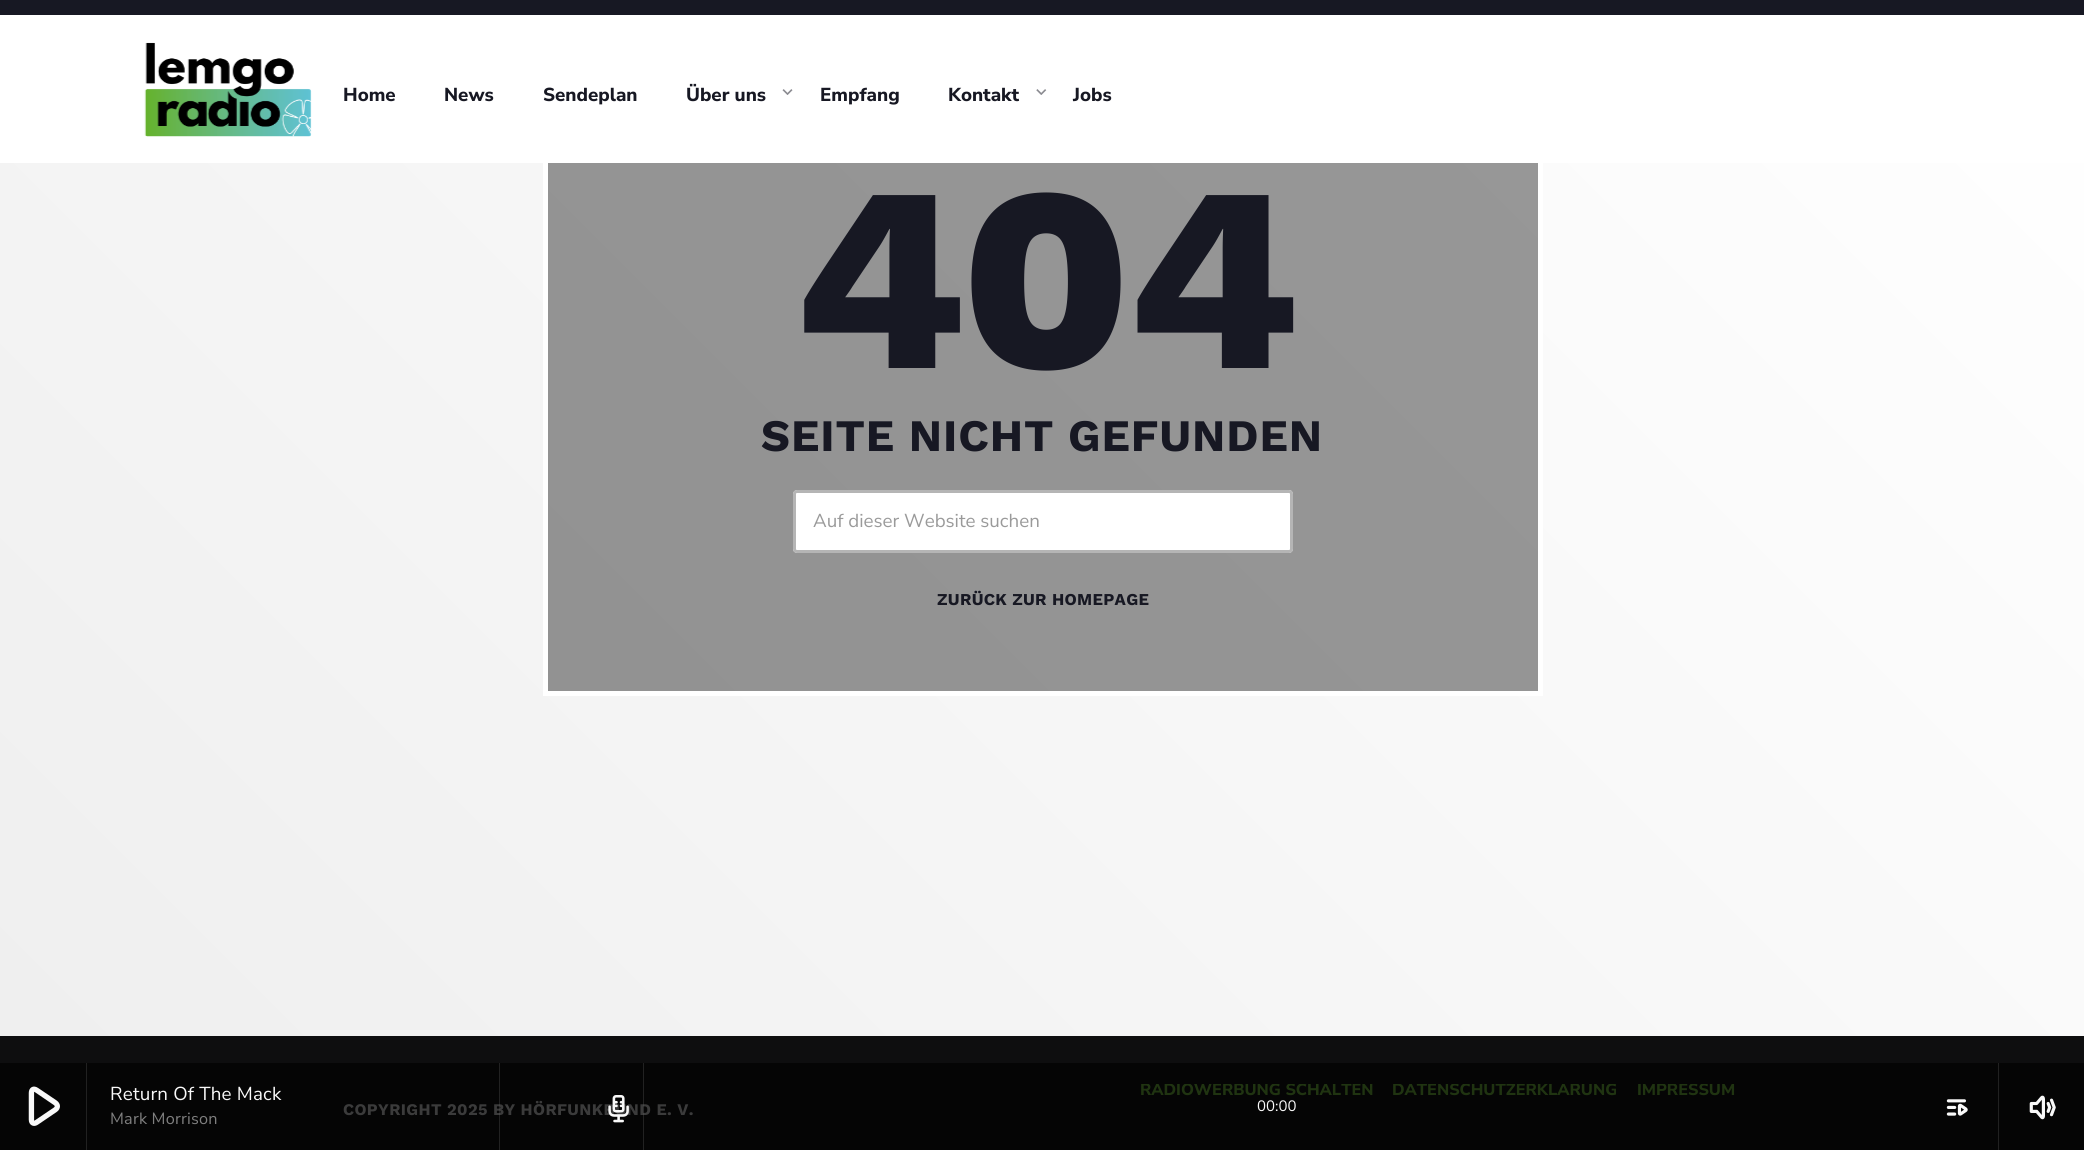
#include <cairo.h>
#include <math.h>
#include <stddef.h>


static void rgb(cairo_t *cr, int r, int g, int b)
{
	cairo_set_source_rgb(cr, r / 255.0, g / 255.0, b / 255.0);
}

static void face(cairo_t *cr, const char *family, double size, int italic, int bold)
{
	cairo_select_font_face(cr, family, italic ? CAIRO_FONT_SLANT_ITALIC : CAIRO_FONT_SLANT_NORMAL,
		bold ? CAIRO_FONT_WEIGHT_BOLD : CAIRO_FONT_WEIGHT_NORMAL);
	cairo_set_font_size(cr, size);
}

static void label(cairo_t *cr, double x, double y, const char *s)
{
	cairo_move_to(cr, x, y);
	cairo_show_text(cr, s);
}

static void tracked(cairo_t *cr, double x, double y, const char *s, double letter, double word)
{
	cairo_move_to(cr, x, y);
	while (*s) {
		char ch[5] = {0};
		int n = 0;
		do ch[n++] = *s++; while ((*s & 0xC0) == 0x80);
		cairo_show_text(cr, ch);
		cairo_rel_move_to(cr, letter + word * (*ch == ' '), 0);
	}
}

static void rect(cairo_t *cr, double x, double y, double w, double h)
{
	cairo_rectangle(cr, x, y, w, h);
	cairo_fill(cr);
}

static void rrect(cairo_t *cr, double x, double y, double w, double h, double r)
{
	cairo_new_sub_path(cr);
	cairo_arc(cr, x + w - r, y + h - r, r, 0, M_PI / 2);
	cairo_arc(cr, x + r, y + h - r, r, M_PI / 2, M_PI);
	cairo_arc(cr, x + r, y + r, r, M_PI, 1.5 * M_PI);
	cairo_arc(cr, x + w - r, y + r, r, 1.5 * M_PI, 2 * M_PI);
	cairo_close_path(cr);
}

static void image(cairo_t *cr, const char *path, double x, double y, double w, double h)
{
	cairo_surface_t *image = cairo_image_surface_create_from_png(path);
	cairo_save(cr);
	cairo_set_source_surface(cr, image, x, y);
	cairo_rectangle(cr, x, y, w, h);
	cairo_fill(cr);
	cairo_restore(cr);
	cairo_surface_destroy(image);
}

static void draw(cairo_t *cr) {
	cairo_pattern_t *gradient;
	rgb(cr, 255, 255, 255);
	cairo_paint(cr);
	rgb(cr, 23, 24, 35);
	rect(cr, 0, 0, 2084, 15);
	image(cr, "image0.png", 144, 42, 168, 95);
	face(cr, "Nunito Sans ExtraBold", 18.75, 0, 0);
	label(cr, 343, 101, "Home");
	label(cr, 444, 101, "News");
	gradient = cairo_pattern_create_linear(263, 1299, 1823, -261);
	cairo_pattern_add_color_stop_rgba(gradient, 0, 0.937, 0.937, 0.937, 1);
	cairo_pattern_add_color_stop_rgba(gradient, 1, 1, 1, 1, 1);
	cairo_set_source(cr, gradient);
	cairo_pattern_destroy(gradient);
	rect(cr, 0, 163, 2084, 873);
	gradient = cairo_pattern_create_linear(263, 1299, 1823, -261);
	cairo_pattern_add_color_stop_rgba(gradient, 0, 0.561, 0.561, 0.561, 1);
	cairo_pattern_add_color_stop_rgba(gradient, 1, 0.6, 0.6, 0.6, 1);
	cairo_set_source(cr, gradient);
	cairo_pattern_destroy(gradient);
	rect(cr, 548, 163, 990, 528);
	cairo_rectangle(cr, 545.5, 91.5, 995, 602);
	rgb(cr, 255, 255, 255);
	cairo_set_line_width(cr, 5);
	cairo_stroke(cr);
	rgb(cr, 23, 24, 35);
	label(cr, 543, 101, "Sendeplan");
	label(cr, 686, 101, "Über uns");
	image(cr, "image1.png", 782, 89, 11, 6);
	label(cr, 820, 101, "Empfang");
	label(cr, 948, 101, "Kontakt");
	image(cr, "image2.png", 1036, 89, 11, 6);
	label(cr, 1073, 101, "Jobs");
	face(cr, "Work Sans ExtraBold", 262, 0, 0);
	tracked(cr, 793, 368, "404", -5, 0);
	face(cr, "Work Sans", 45, 0, 1);
	tracked(cr, 761, 451, "SEITE NICHT GEFUNDEN", 0.9, 0);
	rgb(cr, 255, 255, 255);
	rrect(cr, 793, 490, 500, 63, 4);
	cairo_fill(cr);
	rrect(cr, 794.5, 491.5, 497, 60, 2.5);
	cairo_set_source_rgba(cr, 0.588, 0.588, 0.588, 0.7);
	cairo_set_line_width(cr, 3);
	cairo_stroke(cr);
	face(cr, "Nunito Sans", 18.75, 0, 0);
	rgb(cr, 154, 154, 154);
	label(cr, 813, 527, "Auf dieser Website suchen");
	face(cr, "Work Sans", 16.6, 0, 1);
	rgb(cr, 23, 24, 35);
	tracked(cr, 937, 605, "ZURÜCK ZUR HOMEPAGE", 0.3, 0);
	rgb(cr, 14, 14, 15);
	rect(cr, 0, 1036, 2084, 27);
	rgb(cr, 8, 8, 9);
	rect(cr, 0, 1063, 2084, 87);
	cairo_save(cr);
	cairo_rectangle(cr, 1140, 1084, 234, 14);
	cairo_clip(cr);
	face(cr, "Nunito Sans ExtraBold", 16.25, 0, 0);
	rgb(cr, 56, 92, 30);
	label(cr, 1140, 1095, "RADIOWERBUNG SCHALTEN");
	cairo_restore(cr);
	cairo_save(cr);
	cairo_rectangle(cr, 1393, 1084, 226, 14);
	cairo_clip(cr);
	face(cr, "Nunito Sans ExtraBold", 16.25, 0, 0);
	rgb(cr, 56, 92, 30);
	label(cr, 1392, 1095, "DATENSCHUTZERKLÄRUNG");
	cairo_restore(cr);
	cairo_save(cr);
	cairo_rectangle(cr, 1638, 1084, 98, 14);
	cairo_clip(cr);
	face(cr, "Nunito Sans ExtraBold", 16.25, 0, 0);
	rgb(cr, 56, 92, 30);
	label(cr, 1637, 1095, "IMPRESSUM");
	cairo_restore(cr);
	face(cr, "Work Sans", 16.25, 0, 1);
	rgb(cr, 104, 104, 104);
	tracked(cr, 343, 1115, "COPYRIGHT 2025 BY HÖRFUNKBUND E. V.", 0.4, 0);
	cairo_set_source_rgba(cr, 0, 0, 0, 0.43);
	rect(cr, 0, 1063, 500, 87);
	cairo_set_source_rgba(cr, 0.392, 0.392, 0.392, 0.3);
	rect(cr, 499, 1063, 1, 87);
	rgb(cr, 33, 33, 33);
	rect(cr, 86, 1063, 1, 87);
	image(cr, "image3.png", 28, 1086, 32, 40);
	face(cr, "Nunito Sans", 18.75, 0, 0);
	rgb(cr, 249, 249, 249);
	tracked(cr, 110, 1100, "Return Of The Mack", 0.2, 0);
	face(cr, "Nunito Sans", 16.25, 0, 0);
	rgb(cr, 127, 127, 127);
	tracked(cr, 110, 1124, "Mark Morrison", 0.2, 0);
	cairo_set_source_rgba(cr, 0, 0, 0, 0.43);
	rect(cr, 500, 1063, 1584, 87);
	cairo_set_source_rgba(cr, 0.392, 0.392, 0.392, 0.3);
	rect(cr, 643, 1063, 1, 87);
	image(cr, "image4.png", 608, 1095, 21, 28);
	face(cr, "Nunito Sans", 15, 0, 0);
	rgb(cr, 249, 249, 249);
	label(cr, 1257, 1111, "00:00");
	image(cr, "image5.png", 1946, 1099, 22, 17);
	rgb(cr, 33, 33, 33);
	rect(cr, 1998, 1063, 1, 87);
	image(cr, "image6.png", 2029, 1095, 27, 25);
}

int main(void) {
	cairo_surface_t *surface = cairo_image_surface_create(CAIRO_FORMAT_RGB24, 2084, 1150);
	cairo_t *cr = cairo_create(surface);
	cairo_font_options_t *options = cairo_font_options_create();
	cairo_font_options_set_hint_metrics(options, CAIRO_HINT_METRICS_OFF);
	cairo_font_options_set_hint_style(options, CAIRO_HINT_STYLE_NONE);
	cairo_set_font_options(cr, options);
	cairo_set_miter_limit(cr, 4);
	draw(cr);
	cairo_surface_write_to_png(surface, "render.png");
	cairo_font_options_destroy(options);
	cairo_destroy(cr);
	cairo_surface_destroy(surface);
	return 0;
}
